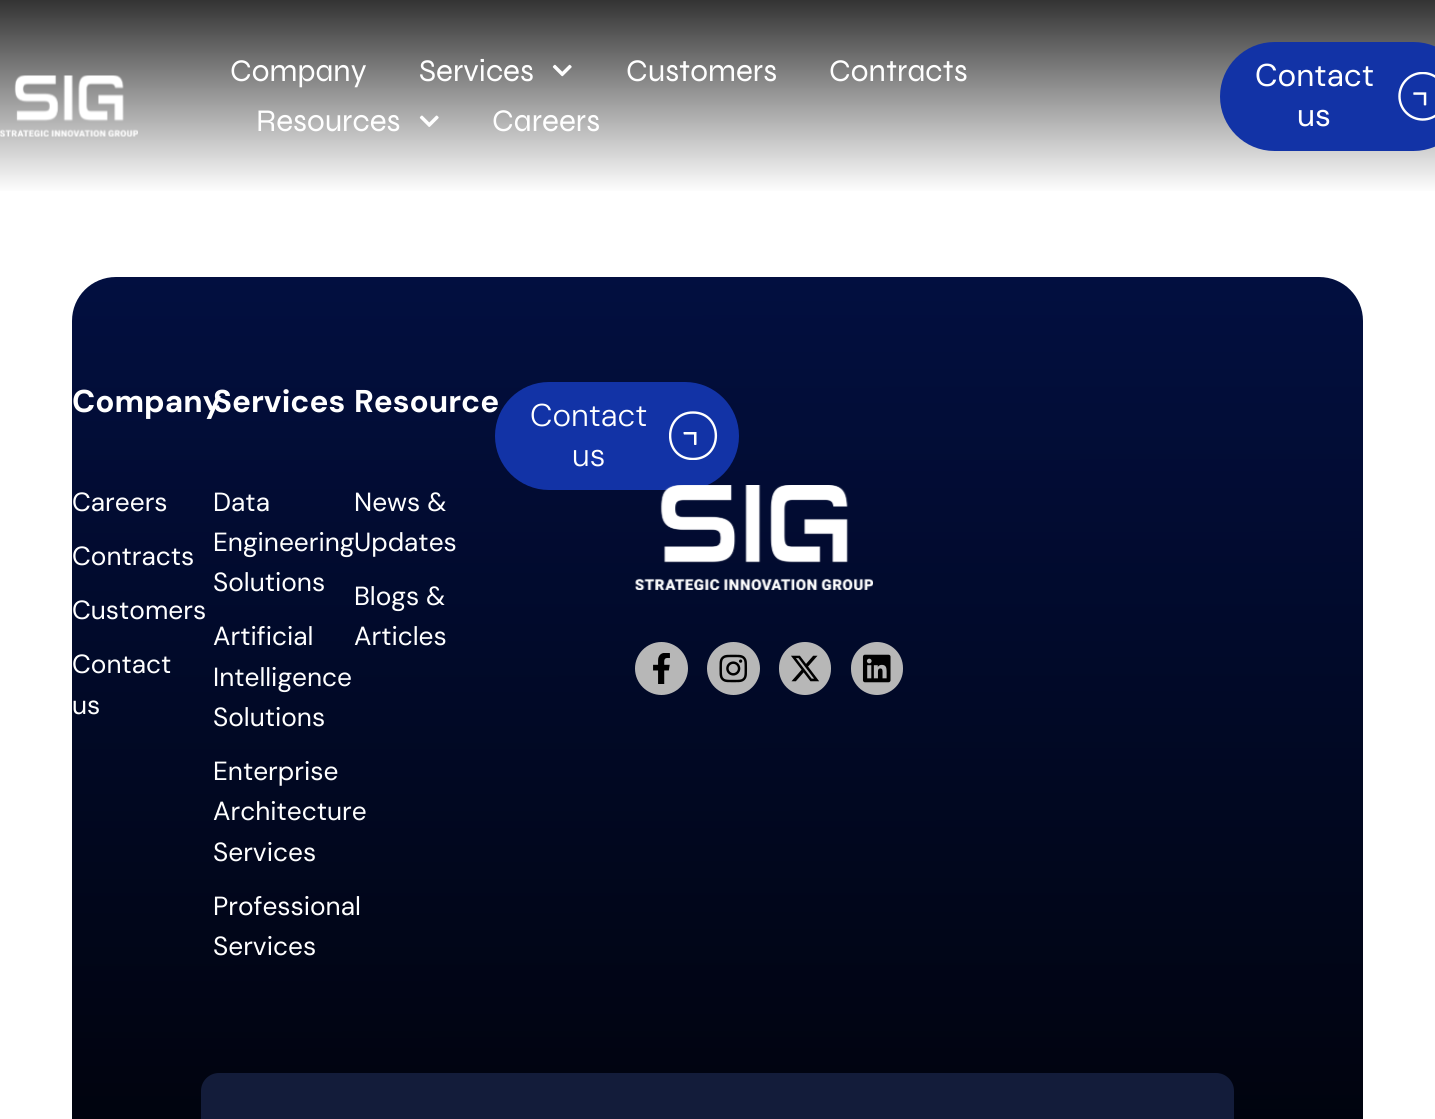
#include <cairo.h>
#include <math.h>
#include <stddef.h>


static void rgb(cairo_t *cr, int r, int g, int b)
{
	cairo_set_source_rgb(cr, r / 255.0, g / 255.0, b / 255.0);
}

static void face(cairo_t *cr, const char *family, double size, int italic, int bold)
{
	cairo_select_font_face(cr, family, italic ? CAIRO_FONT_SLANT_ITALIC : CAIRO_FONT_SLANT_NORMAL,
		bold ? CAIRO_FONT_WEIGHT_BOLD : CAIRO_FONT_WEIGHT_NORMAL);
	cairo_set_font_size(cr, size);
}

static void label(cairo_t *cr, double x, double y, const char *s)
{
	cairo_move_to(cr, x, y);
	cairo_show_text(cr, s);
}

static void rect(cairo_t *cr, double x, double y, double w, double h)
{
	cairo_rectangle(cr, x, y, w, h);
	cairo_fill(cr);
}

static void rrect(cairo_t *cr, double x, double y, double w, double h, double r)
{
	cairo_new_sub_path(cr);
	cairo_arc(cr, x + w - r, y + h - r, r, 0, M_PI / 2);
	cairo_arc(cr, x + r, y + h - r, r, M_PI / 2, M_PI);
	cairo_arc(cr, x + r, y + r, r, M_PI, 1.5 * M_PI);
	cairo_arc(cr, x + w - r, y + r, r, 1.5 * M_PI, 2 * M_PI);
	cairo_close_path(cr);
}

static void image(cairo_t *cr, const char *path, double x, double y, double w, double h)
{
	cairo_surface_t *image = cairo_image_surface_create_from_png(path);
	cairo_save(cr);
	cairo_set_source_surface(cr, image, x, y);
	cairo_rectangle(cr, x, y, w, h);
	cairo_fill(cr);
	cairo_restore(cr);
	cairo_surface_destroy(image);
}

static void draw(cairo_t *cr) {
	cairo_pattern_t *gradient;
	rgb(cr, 255, 255, 255);
	cairo_paint(cr);
	gradient = cairo_pattern_create_linear(718, 0, 718, 193);
	cairo_pattern_add_color_stop_rgba(gradient, 0, 0.2, 0.2, 0.2, 1);
	cairo_pattern_add_color_stop_rgba(gradient, 1, 1, 1, 1, 1);
	cairo_set_source(cr, gradient);
	cairo_pattern_destroy(gradient);
	rect(cr, 0, 0, 1435, 191);
	image(cr, "image0.png", 0, 75, 138, 62);
	face(cr, "Syne", 31.5, 0, 0);
	rgb(cr, 255, 255, 255);
	label(cr, 230, 81, "Company");
	label(cr, 419, 81, "Services");
	image(cr, "image1.png", 552, 64, 20, 13);
	label(cr, 626, 81, "Customers");
	label(cr, 829, 81, "Contracts");
	label(cr, 256, 131, "Resources");
	image(cr, "image2.png", 419, 115, 20, 12);
	label(cr, 492, 131, "Careers");
	rgb(cr, 18, 51, 166);
	rrect(cr, 1220, 42, 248, 109, 54.5);
	cairo_fill(cr);
	face(cr, "DM Sans", 31.5, 0, 0);
	rgb(cr, 255, 255, 255);
	label(cr, 1255, 86, "Contact");
	label(cr, 1297, 126, "us");
	image(cr, "image3.png", 1398, 72, 37, 49);
	gradient = cairo_pattern_create_linear(717, 276, 718, 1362);
	cairo_pattern_add_color_stop_rgba(gradient, 0, 0.008, 0.059, 0.251, 1);
	cairo_pattern_add_color_stop_rgba(gradient, 1, 0, 0, 0, 1);
	cairo_set_source(cr, gradient);
	cairo_pattern_destroy(gradient);
	cairo_new_path(cr);
	cairo_move_to(cr, 116, 277);
	cairo_line_to(cr, 1319, 277);
	cairo_curve_to(cr, 1343.5, 277, 1363, 296.5, 1363, 321);
	cairo_line_to(cr, 1363, 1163);
	cairo_line_to(cr, 72, 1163);
	cairo_line_to(cr, 72, 321);
	cairo_curve_to(cr, 72, 296.5, 91.5, 277, 116, 277);
	cairo_close_path(cr);
	cairo_fill(cr);
	face(cr, "DM Sans", 31.5, 0, 1);
	rgb(cr, 255, 255, 255);
	label(cr, 72, 412, "Company");
	face(cr, "DM Sans", 26.25, 0, 0);
	label(cr, 72, 511, "Careers");
	label(cr, 72, 565, "Contracts");
	label(cr, 72, 619, "Customers");
	label(cr, 72, 673, "Contact");
	label(cr, 72, 714, "us");
	face(cr, "DM Sans", 31.5, 0, 1);
	label(cr, 213, 412, "Services");
	face(cr, "DM Sans", 26.25, 0, 0);
	label(cr, 213, 511, "Data");
	label(cr, 213, 551, "Engineering");
	label(cr, 213, 591, "Solutions");
	label(cr, 213, 645, "Artificial");
	label(cr, 213, 686, "Intelligence");
	label(cr, 213, 726, "Solutions");
	label(cr, 213, 780, "Enterprise");
	label(cr, 213, 820, "Architecture");
	label(cr, 213, 861, "Services");
	label(cr, 213, 915, "Professional");
	label(cr, 213, 955, "Services");
	face(cr, "DM Sans", 31.5, 0, 1);
	label(cr, 354, 412, "Resource");
	face(cr, "DM Sans", 26.25, 0, 0);
	label(cr, 354, 511, "News &");
	label(cr, 354, 551, "Updates");
	label(cr, 354, 605, "Blogs &");
	label(cr, 354, 645, "Articles");
	rgb(cr, 18, 51, 166);
	rrect(cr, 495, 382, 244, 108, 54);
	cairo_fill(cr);
	face(cr, "DM Sans Light", 31.5, 0, 0);
	rgb(cr, 255, 255, 255);
	label(cr, 530, 426, "Contact");
	label(cr, 572, 466, "us");
	cairo_save(cr);
	cairo_rectangle(cr, 669, 411, 49, 49);
	cairo_clip(cr);
	cairo_new_path(cr);
	cairo_move_to(cr, 693, 412.5);
	cairo_curve_to(cr, 723.5, 412.5, 723.5, 459, 693, 459);
	cairo_curve_to(cr, 662.5, 459, 662.5, 412.5, 693, 412.5);
	cairo_close_path(cr);
	cairo_set_line_width(cr, 2.4);
	cairo_stroke(cr);
	cairo_restore(cr);
	cairo_new_path(cr);
	cairo_move_to(cr, 696.5, 432.5);
	cairo_line_to(cr, 696.5, 443.5);
	cairo_curve_to(cr, 696.5, 444, 696.5, 445, 696, 445);
	cairo_line_to(cr, 694.5, 445);
	cairo_curve_to(cr, 694, 445, 694, 444, 694, 443.5);
	cairo_line_to(cr, 694, 434.5);
	cairo_line_to(cr, 684, 434.5);
	cairo_curve_to(cr, 683.5, 434, 683.5, 433, 683.5, 432.5);
	cairo_curve_to(cr, 683.5, 432, 684, 432, 684, 432);
	cairo_line_to(cr, 696.5, 432);
	cairo_close_path(cr);
	cairo_fill(cr);
	image(cr, "image4.png", 635, 485, 238, 105);
	rgb(cr, 183, 183, 183);
	cairo_arc(cr, 661.5, 668.5, 26.5, 0, 2 * M_PI);
	cairo_fill(cr);
	image(cr, "image5.png", 653, 653, 17, 31);
	cairo_arc(cr, 733.5, 668.5, 26.5, 0, 2 * M_PI);
	cairo_fill(cr);
	image(cr, "image6.png", 719, 654, 29, 29);
	rrect(cr, 779, 642, 52, 53, 26);
	cairo_fill(cr);
	image(cr, "image7.png", 791, 655, 29, 27);
	rrect(cr, 851, 642, 52, 53, 26);
	cairo_fill(cr);
	image(cr, "image8.png", 862, 654, 29, 29);
	rgb(cr, 19, 28, 58);
	rrect(cr, 201, 1073, 1033, 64, 18);
	cairo_fill(cr);
}

int main(void) {
	cairo_surface_t *surface = cairo_image_surface_create(CAIRO_FORMAT_RGB24, 1435, 1119);
	cairo_t *cr = cairo_create(surface);
	cairo_font_options_t *options = cairo_font_options_create();
	cairo_font_options_set_hint_metrics(options, CAIRO_HINT_METRICS_OFF);
	cairo_font_options_set_hint_style(options, CAIRO_HINT_STYLE_NONE);
	cairo_set_font_options(cr, options);
	cairo_set_miter_limit(cr, 4);
	draw(cr);
	cairo_surface_write_to_png(surface, "render.png");
	cairo_font_options_destroy(options);
	cairo_destroy(cr);
	cairo_surface_destroy(surface);
	return 0;
}
